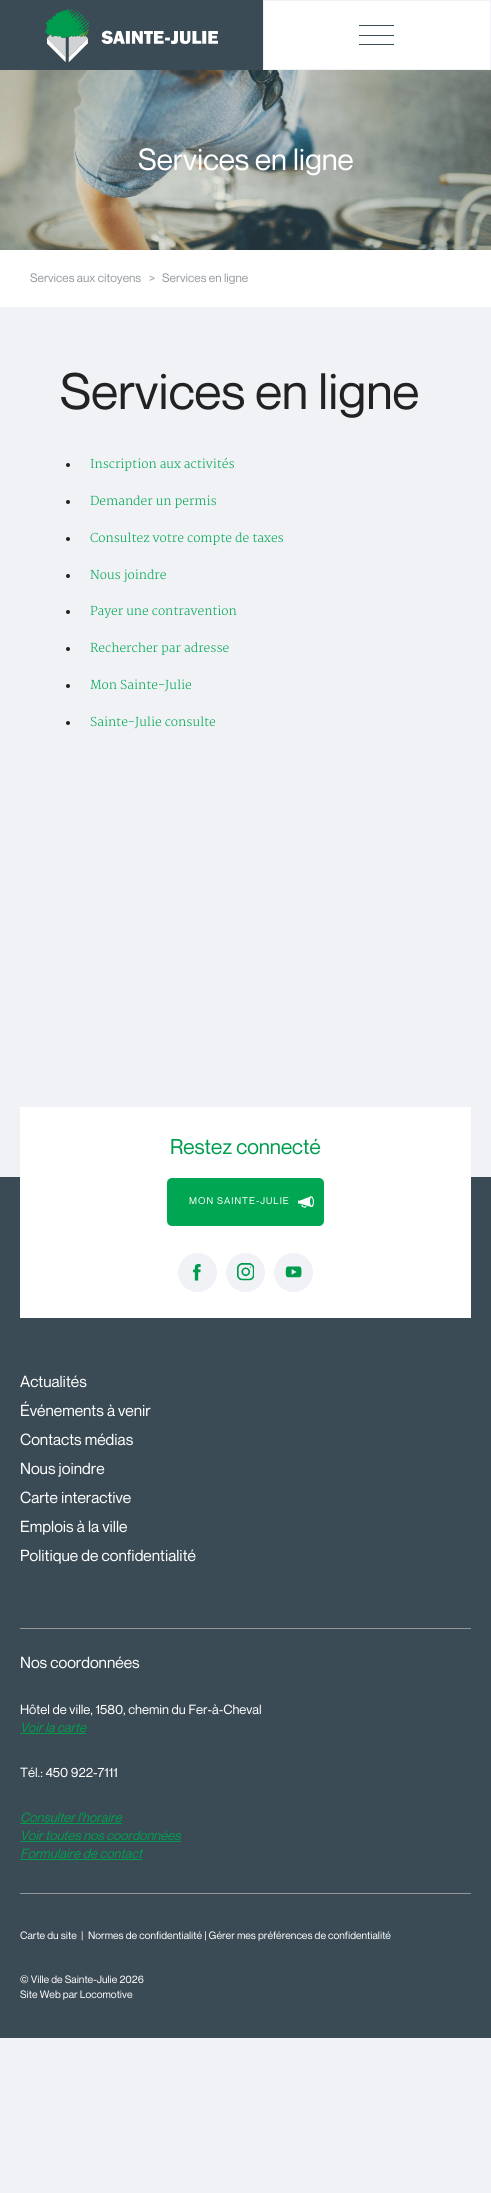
#include <cairo.h>
#include <math.h>
#include <stddef.h>


static void rgb(cairo_t *cr, int r, int g, int b)
{
	cairo_set_source_rgb(cr, r / 255.0, g / 255.0, b / 255.0);
}

static void face(cairo_t *cr, const char *family, double size, int italic, int bold)
{
	cairo_select_font_face(cr, family, italic ? CAIRO_FONT_SLANT_ITALIC : CAIRO_FONT_SLANT_NORMAL,
		bold ? CAIRO_FONT_WEIGHT_BOLD : CAIRO_FONT_WEIGHT_NORMAL);
	cairo_set_font_size(cr, size);
}

static void label(cairo_t *cr, double x, double y, const char *s)
{
	cairo_move_to(cr, x, y);
	cairo_show_text(cr, s);
}

static void tracked(cairo_t *cr, double x, double y, const char *s, double letter, double word)
{
	cairo_move_to(cr, x, y);
	while (*s) {
		char ch[5] = {0};
		int n = 0;
		do ch[n++] = *s++; while ((*s & 0xC0) == 0x80);
		cairo_show_text(cr, ch);
		cairo_rel_move_to(cr, letter + word * (*ch == ' '), 0);
	}
}

static void rect(cairo_t *cr, double x, double y, double w, double h)
{
	cairo_rectangle(cr, x, y, w, h);
	cairo_fill(cr);
}

static void rrect(cairo_t *cr, double x, double y, double w, double h, double r)
{
	cairo_new_sub_path(cr);
	cairo_arc(cr, x + w - r, y + h - r, r, 0, M_PI / 2);
	cairo_arc(cr, x + r, y + h - r, r, M_PI / 2, M_PI);
	cairo_arc(cr, x + r, y + r, r, M_PI, 1.5 * M_PI);
	cairo_arc(cr, x + w - r, y + r, r, 1.5 * M_PI, 2 * M_PI);
	cairo_close_path(cr);
}

static void image(cairo_t *cr, const char *path, double x, double y, double w, double h)
{
	cairo_surface_t *image = cairo_image_surface_create_from_png(path);
	cairo_save(cr);
	cairo_set_source_surface(cr, image, x, y);
	cairo_rectangle(cr, x, y, w, h);
	cairo_fill(cr);
	cairo_restore(cr);
	cairo_surface_destroy(image);
}

static void draw(cairo_t *cr) {
	rgb(cr, 240, 242, 246);
	cairo_paint(cr);
	rgb(cr, 255, 255, 255);
	rect(cr, 264, 1, 226, 68);
	rgb(cr, 59, 75, 85);
	rect(cr, 0, 0, 263, 70);
	image(cr, "image0.png", 45, 9, 173, 53);
	rect(cr, 359, 25, 35, 1);
	rect(cr, 359, 35, 35, 1);
	rect(cr, 359, 44, 35, 1);
	image(cr, "image1.png", 0, 70, 491, 180);
	face(cr, "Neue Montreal", 30, 0, 0);
	rgb(cr, 255, 255, 255);
	label(cr, 138, 170, "Services en ligne");
	rect(cr, 0, 250, 491, 57);
	face(cr, "Neue Montreal", 12, 0, 0);
	rgb(cr, 147, 154, 159);
	label(cr, 30, 282, "Services aux citoyens");
	label(cr, 149, 282, ">");
	label(cr, 162, 282, "Services en ligne");
	face(cr, "Neue Montreal", 50, 0, 0);
	rgb(cr, 34, 34, 34);
	label(cr, 60, 409, "Services en ligne");
	cairo_new_path(cr);
	cairo_arc(cr, 68, 465, 2, 0, 2 * M_PI);
	cairo_fill(cr);
	face(cr, "Merriweather Light", 12, 0, 0);
	rgb(cr, 0, 166, 81);
	label(cr, 90, 468, "Inscription aux activités");
	rgb(cr, 34, 34, 34);
	cairo_new_path(cr);
	cairo_arc(cr, 68, 502, 2, 0, 2 * M_PI);
	cairo_fill(cr);
	rgb(cr, 0, 166, 81);
	label(cr, 90, 505, "Demander un permis");
	rgb(cr, 34, 34, 34);
	cairo_new_path(cr);
	cairo_arc(cr, 68, 539, 2, 0, 2 * M_PI);
	cairo_fill(cr);
	rgb(cr, 0, 166, 81);
	label(cr, 90, 542, "Consultez votre compte de taxes");
	rgb(cr, 34, 34, 34);
	cairo_new_path(cr);
	cairo_arc(cr, 68, 576, 2, 0, 2 * M_PI);
	cairo_fill(cr);
	rgb(cr, 0, 166, 81);
	label(cr, 90, 579, "Nous joindre");
	rgb(cr, 34, 34, 34);
	cairo_new_path(cr);
	cairo_arc(cr, 68, 612, 2, 0, 2 * M_PI);
	cairo_fill(cr);
	rgb(cr, 0, 166, 81);
	label(cr, 90, 615, "Payer une contravention");
	rgb(cr, 34, 34, 34);
	cairo_new_path(cr);
	cairo_arc(cr, 68, 649, 2, 0, 2 * M_PI);
	cairo_fill(cr);
	rgb(cr, 0, 166, 81);
	label(cr, 90, 652, "Rechercher par adresse");
	rgb(cr, 34, 34, 34);
	cairo_new_path(cr);
	cairo_arc(cr, 68, 686, 2, 0, 2 * M_PI);
	cairo_fill(cr);
	rgb(cr, 0, 166, 81);
	label(cr, 90, 689, "Mon Sainte-Julie");
	rgb(cr, 34, 34, 34);
	cairo_new_path(cr);
	cairo_arc(cr, 68, 723, 2, 0, 2 * M_PI);
	cairo_fill(cr);
	rgb(cr, 0, 166, 81);
	label(cr, 90, 726, "Sainte-Julie consulte");
	rgb(cr, 59, 75, 85);
	rect(cr, 0, 1177, 491, 861);
	rgb(cr, 255, 255, 255);
	rect(cr, 20, 1107, 451, 211);
	face(cr, "Neue Montreal", 21, 0, 0);
	rgb(cr, 0, 156, 78);
	label(cr, 170, 1154, "Restez connecté");
	rgb(cr, 0, 166, 81);
	rrect(cr, 167, 1178, 157, 48, 5);
	cairo_fill(cr);
	face(cr, "Neue Montreal", 9.6, 0, 0);
	rgb(cr, 255, 255, 255);
	tracked(cr, 189, 1204, "MON SAINTE-JULIE", 1, 0);
	image(cr, "image2.png", 298, 1196, 16, 12);
	rgb(cr, 240, 242, 246);
	cairo_arc(cr, 197.5, 1272.5, 19.5, 0, 2 * M_PI);
	cairo_fill(cr);
	image(cr, "image3.png", 193, 1264, 8, 17);
	cairo_arc(cr, 245.5, 1272.5, 19.5, 0, 2 * M_PI);
	cairo_fill(cr);
	image(cr, "image4.png", 237, 1263, 17, 18);
	cairo_arc(cr, 293.5, 1272.5, 19.5, 0, 2 * M_PI);
	cairo_fill(cr);
	image(cr, "image5.png", 285, 1266, 17, 12);
	face(cr, "Neue Montreal", 15.75, 0, 0);
	rgb(cr, 255, 255, 255);
	label(cr, 20, 1387, "Actualités");
	label(cr, 20, 1416, "Événements à venir");
	label(cr, 20, 1445, "Contacts médias");
	label(cr, 20, 1474, "Nous joindre");
	label(cr, 20, 1503, "Carte interactive");
	label(cr, 20, 1532, "Emplois à la ville");
	label(cr, 20, 1561, "Politique de confidentialité");
	rgb(cr, 151, 151, 151);
	rect(cr, 20, 1628, 451, 1);
	rect(cr, 20, 1893, 451, 1);
	rgb(cr, 255, 255, 255);
	label(cr, 20, 1668, "Nos coordonnées");
	face(cr, "Neue Montreal", 13.1, 0, 0);
	label(cr, 20, 1714, "Hôtel de ville, 1580, chemin du Fer-à-Cheval");
	face(cr, "Neue Montreal", 13.1, 1, 0);
	rgb(cr, 0, 156, 78);
	label(cr, 20, 1732, "Voir la carte");
	rect(cr, 20, 1733, 66, 1);
	face(cr, "Neue Montreal", 13.1, 0, 0);
	rgb(cr, 255, 255, 255);
	label(cr, 20, 1777, "Tél.: 450 922-7111");
	face(cr, "Neue Montreal", 13.1, 1, 0);
	rgb(cr, 0, 156, 78);
	label(cr, 20, 1822, "Consulter l'horaire");
	rect(cr, 20, 1823, 102, 1);
	label(cr, 20, 1840, "Voir toutes nos coordonnées");
	rect(cr, 20, 1841, 161, 1);
	label(cr, 20, 1858, "Formulaire de contact");
	rect(cr, 20, 1859, 122, 1);
	face(cr, "Neue Montreal", 10.5, 0, 0);
	rgb(cr, 255, 255, 255);
	label(cr, 20, 1939, "Carte du site");
	label(cr, 81, 1939, "|");
	label(cr, 88, 1939, "Normes de confidentialité | Gérer mes préférences de confidentialité");
	label(cr, 20, 1998, "Site Web par Locomotive");
	label(cr, 20, 1983, "© Ville de Sainte-Julie 2026");
}

int main(void) {
	cairo_surface_t *surface = cairo_image_surface_create(CAIRO_FORMAT_RGB24, 491, 2193);
	cairo_t *cr = cairo_create(surface);
	cairo_font_options_t *options = cairo_font_options_create();
	cairo_font_options_set_hint_metrics(options, CAIRO_HINT_METRICS_OFF);
	cairo_font_options_set_hint_style(options, CAIRO_HINT_STYLE_NONE);
	cairo_set_font_options(cr, options);
	cairo_set_miter_limit(cr, 4);
	draw(cr);
	cairo_surface_write_to_png(surface, "render.png");
	cairo_font_options_destroy(options);
	cairo_destroy(cr);
	cairo_surface_destroy(surface);
	return 0;
}
